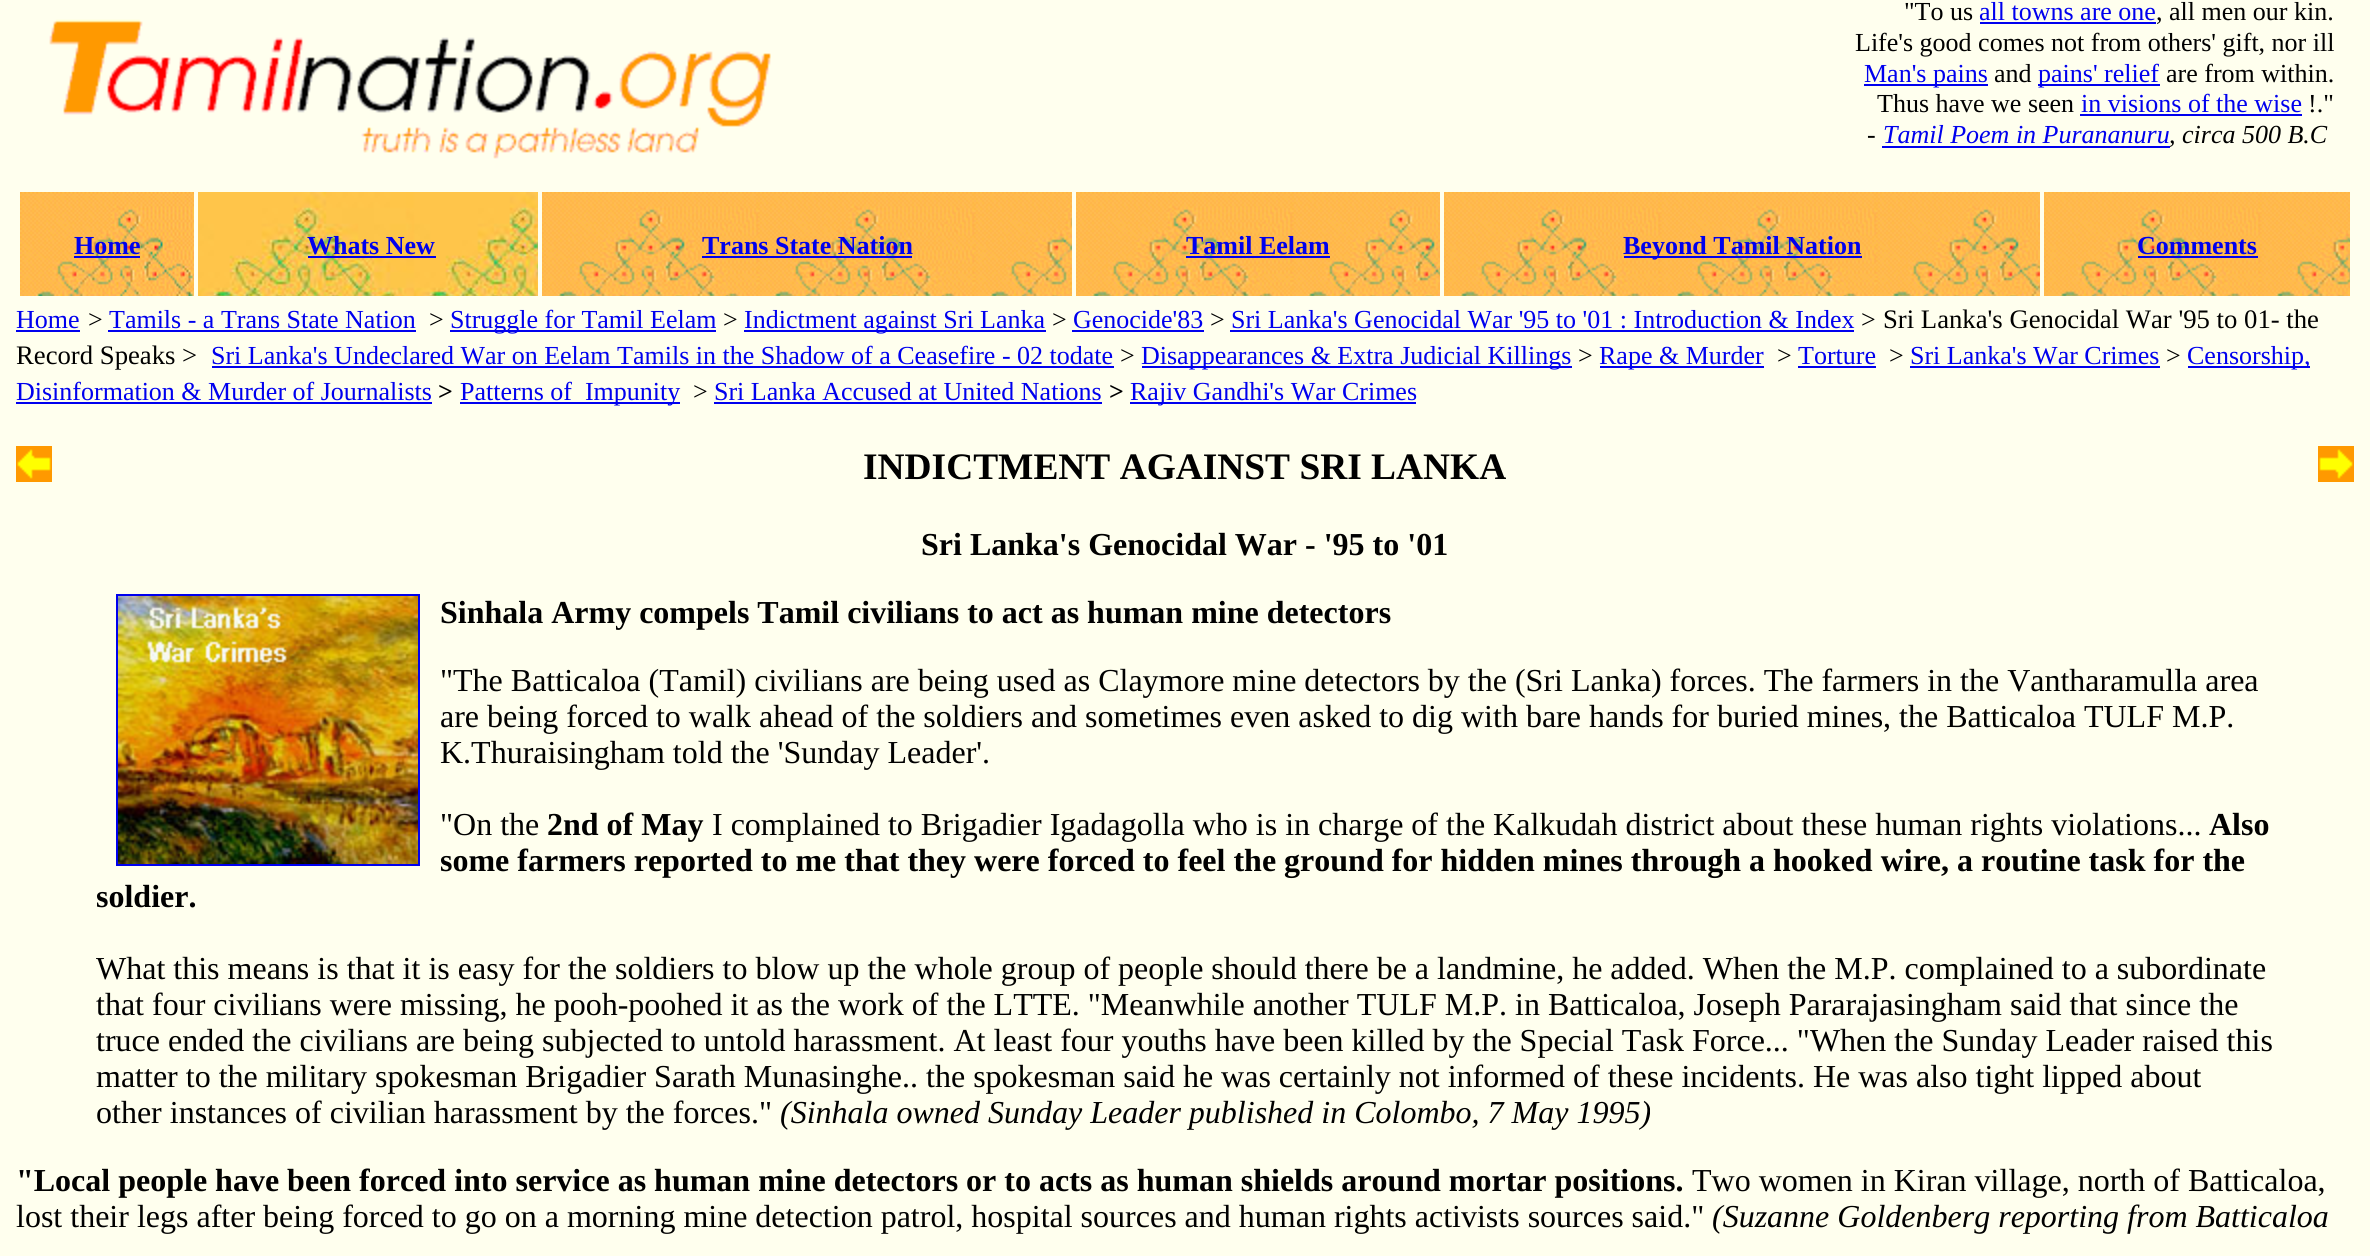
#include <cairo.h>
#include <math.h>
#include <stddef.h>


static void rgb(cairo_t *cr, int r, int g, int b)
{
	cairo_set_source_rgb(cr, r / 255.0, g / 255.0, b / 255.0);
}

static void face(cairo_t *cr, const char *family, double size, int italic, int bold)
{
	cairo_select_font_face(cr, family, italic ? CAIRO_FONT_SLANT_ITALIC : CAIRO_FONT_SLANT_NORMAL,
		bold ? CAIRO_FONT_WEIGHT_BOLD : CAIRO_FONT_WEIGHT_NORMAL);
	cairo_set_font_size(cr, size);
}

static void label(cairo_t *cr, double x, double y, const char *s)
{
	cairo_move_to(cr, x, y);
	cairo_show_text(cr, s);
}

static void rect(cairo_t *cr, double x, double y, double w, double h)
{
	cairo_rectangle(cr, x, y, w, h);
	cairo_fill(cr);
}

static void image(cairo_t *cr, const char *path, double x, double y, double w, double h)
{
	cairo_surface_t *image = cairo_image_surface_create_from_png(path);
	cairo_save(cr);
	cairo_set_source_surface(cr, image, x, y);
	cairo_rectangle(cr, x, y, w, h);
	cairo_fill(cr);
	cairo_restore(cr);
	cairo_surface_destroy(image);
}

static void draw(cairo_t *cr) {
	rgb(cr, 255, 255, 238);
	cairo_paint(cr);
	image(cr, "image0.png", 49, 19, 722, 140);
	face(cr, "Liberation Serif", 26, 0, 0);
	rgb(cr, 0, 0, 0);
	label(cr, 1904, 20, "\"To us");
	rgb(cr, 0, 0, 238);
	label(cr, 1979, 20, "all towns are one");
	rgb(cr, 0, 0, 0);
	label(cr, 2156, 20, ", all men our kin.");
	rgb(cr, 0, 0, 238);
	rect(cr, 1980, 22, 176, 2);
	rgb(cr, 0, 0, 0);
	label(cr, 1855, 51, "Life's good comes not from others' gift, nor ill");
	rgb(cr, 0, 0, 238);
	rect(cr, 1864, 84, 124, 2);
	label(cr, 1864, 82, "Man's pains");
	rgb(cr, 0, 0, 0);
	label(cr, 1994, 82, "and");
	rgb(cr, 0, 0, 238);
	rect(cr, 2038, 84, 122, 2);
	label(cr, 2038, 82, "pains' relief");
	rgb(cr, 0, 0, 0);
	label(cr, 2166, 82, "are from within.");
	label(cr, 1877, 112, "Thus have we seen");
	rgb(cr, 0, 0, 238);
	label(cr, 2081, 112, "in visions of the wise");
	rect(cr, 2080, 114, 222, 2);
	rgb(cr, 0, 0, 0);
	label(cr, 2308, 112, "!.\"");
	face(cr, "Liberation Serif", 26, 1, 0);
	label(cr, 1867, 143, "-");
	rgb(cr, 0, 0, 238);
	label(cr, 1883, 143, "Tamil Poem in Purananuru");
	rgb(cr, 0, 0, 0);
	label(cr, 2169, 143, ", circa 500 B.C");
	rgb(cr, 0, 0, 238);
	rect(cr, 1882, 146, 288, 2);
	image(cr, "image1.png", 20, 192, 174, 104);
	face(cr, "Liberation Serif", 26, 0, 1);
	label(cr, 74, 254, "Home");
	rect(cr, 74, 256, 66, 2);
	image(cr, "image2.png", 198, 192, 340, 104);
	label(cr, 307, 254, "Whats New");
	rect(cr, 308, 256, 128, 2);
	image(cr, "image3.png", 542, 192, 530, 104);
	label(cr, 702, 254, "Trans State Nation");
	rect(cr, 702, 256, 210, 2);
	image(cr, "image4.png", 1076, 192, 364, 104);
	label(cr, 1186, 254, "Tamil Eelam");
	rect(cr, 1186, 256, 144, 2);
	image(cr, "image5.png", 1444, 192, 596, 104);
	rect(cr, 1624, 256, 238, 2);
	label(cr, 1623, 254, "Beyond Tamil Nation");
	image(cr, "image6.png", 2044, 192, 306, 104);
	label(cr, 2137, 254, "Comments");
	rect(cr, 2138, 256, 120, 2);
	face(cr, "Liberation Serif", 26, 0, 0);
	label(cr, 16, 328, "Home");
	rect(cr, 16, 330, 64, 2);
	rgb(cr, 0, 0, 0);
	label(cr, 88, 328, ">");
	rgb(cr, 0, 0, 238);
	label(cr, 109, 328, "Tamils - a Trans State Nation");
	rect(cr, 108, 330, 308, 2);
	rgb(cr, 0, 0, 0);
	label(cr, 429, 328, ">");
	rgb(cr, 0, 0, 238);
	rect(cr, 450, 330, 266, 2);
	label(cr, 450, 328, "Struggle for Tamil Eelam");
	rgb(cr, 0, 0, 0);
	label(cr, 723, 328, ">");
	rgb(cr, 0, 0, 238);
	rect(cr, 744, 330, 302, 2);
	label(cr, 744, 328, "Indictment against Sri Lanka");
	rgb(cr, 0, 0, 0);
	label(cr, 1052, 328, ">");
	rgb(cr, 0, 0, 238);
	label(cr, 1073, 328, "Genocide'83");
	rect(cr, 1072, 330, 132, 2);
	rgb(cr, 0, 0, 0);
	label(cr, 1210, 328, ">");
	rgb(cr, 0, 0, 238);
	label(cr, 1231, 328, "Sri Lanka's Genocidal War '95 to '01 : Introduction & Index");
	rect(cr, 1230, 330, 624, 2);
	rgb(cr, 0, 0, 0);
	label(cr, 1861, 328, ">");
	face(cr, "Liberation Serif", 26.7, 0, 0);
	label(cr, 1883, 328, "Sri Lanka's Genocidal War '95 to 01- the");
	label(cr, 16, 364, "Record Speaks >");
	face(cr, "Liberation Serif", 26, 0, 0);
	rgb(cr, 0, 0, 238);
	label(cr, 211, 364, "Sri Lanka's Undeclared War on Eelam Tamils in the Shadow of a Ceasefire - 02 todate");
	rect(cr, 212, 366, 902, 2);
	rgb(cr, 0, 0, 0);
	label(cr, 1120, 364, ">");
	rgb(cr, 0, 0, 238);
	rect(cr, 1142, 366, 430, 2);
	label(cr, 1141, 364, "Disappearances & Extra Judicial Killings");
	rgb(cr, 0, 0, 0);
	label(cr, 1578, 364, ">");
	rgb(cr, 0, 0, 238);
	rect(cr, 1600, 366, 164, 2);
	label(cr, 1599, 364, "Rape & Murder");
	rgb(cr, 0, 0, 0);
	label(cr, 1777, 364, ">");
	rgb(cr, 0, 0, 238);
	label(cr, 1798, 364, "Torture");
	rect(cr, 1798, 366, 78, 2);
	rgb(cr, 0, 0, 0);
	label(cr, 1889, 364, ">");
	rgb(cr, 0, 0, 238);
	label(cr, 1910, 364, "Sri Lanka's War Crimes");
	rect(cr, 1910, 366, 250, 2);
	rgb(cr, 0, 0, 0);
	label(cr, 2166, 364, ">");
	rgb(cr, 0, 0, 238);
	rect(cr, 2188, 366, 122, 2);
	label(cr, 2187, 364, "Censorship,");
	label(cr, 16, 400, "Disinformation & Murder of Journalists");
	rect(cr, 16, 402, 416, 2);
	face(cr, "Liberation Serif", 26, 0, 1);
	rgb(cr, 0, 0, 0);
	label(cr, 438, 400, ">");
	rgb(cr, 0, 0, 238);
	rect(cr, 460, 402, 220, 2);
	face(cr, "Liberation Serif", 26, 0, 0);
	label(cr, 460, 400, "Patterns of  Impunity");
	rgb(cr, 0, 0, 0);
	label(cr, 693, 400, ">");
	rgb(cr, 0, 0, 238);
	label(cr, 714, 400, "Sri Lanka Accused at United Nations");
	rect(cr, 714, 402, 388, 2);
	face(cr, "Liberation Serif", 26, 0, 1);
	rgb(cr, 0, 0, 0);
	label(cr, 1109, 400, ">");
	rgb(cr, 0, 0, 238);
	rect(cr, 1130, 402, 286, 2);
	face(cr, "Liberation Serif", 26, 0, 0);
	label(cr, 1130, 400, "Rajiv Gandhi's War Crimes");
	image(cr, "image7.png", 16, 446, 36, 36);
	face(cr, "Liberation Serif", 37.4, 0, 1);
	rgb(cr, 0, 0, 0);
	label(cr, 863, 479, "INDICTMENT AGAINST SRI LANKA");
	image(cr, "image8.png", 2318, 446, 36, 36);
	face(cr, "Liberation Serif", 32, 0, 1);
	label(cr, 921, 555, "Sri Lanka's Genocidal War - '95 to '01");
	cairo_rectangle(cr, 117, 595, 302, 270);
	rgb(cr, 0, 0, 238);
	cairo_stroke(cr);
	image(cr, "image9.png", 118, 596, 300, 268);
	rgb(cr, 0, 0, 0);
	label(cr, 440, 623, "Sinhala Army compels Tamil civilians to act as human mine detectors");
	face(cr, "Liberation Serif", 32, 0, 0);
	label(cr, 440, 691, "\"The Batticaloa (Tamil) civilians are being used as Claymore mine detectors by the (Sri Lanka) forces. The farmers in the Vantharamulla area");
	label(cr, 440, 727, "are being forced to walk ahead of the soldiers and sometimes even asked to dig with bare hands for buried mines, the Batticaloa TULF M.P.");
	label(cr, 440, 763, "K.Thuraisingham told the 'Sunday Leader'.");
	label(cr, 440, 835, "\"On the");
	face(cr, "Liberation Serif", 32, 0, 1);
	label(cr, 547, 835, "2nd of May");
	face(cr, "Liberation Serif", 32, 0, 0);
	label(cr, 712, 835, "I complained to Brigadier Igadagolla who is in charge of the Kalkudah district about these human rights violations...");
	face(cr, "Liberation Serif", 32, 0, 1);
	label(cr, 2209, 835, "Also");
	label(cr, 440, 871, "some farmers reported to me that they were forced to feel the ground for hidden mines through a hooked wire, a routine task for the");
	label(cr, 96, 907, "soldier.");
	face(cr, "Liberation Serif", 32, 0, 0);
	label(cr, 96, 979, "What this means is that it is easy for the soldiers to blow up the whole group of people should there be a landmine, he added. When the M.P. complained to a subordinate");
	label(cr, 96, 1015, "that four civilians were missing, he pooh-poohed it as the work of the LTTE. \"Meanwhile another TULF M.P. in Batticaloa, Joseph Pararajasingham said that since the");
	label(cr, 96, 1051, "truce ended the civilians are being subjected to untold harassment. At least four youths have been killed by the Special Task Force... \"When the Sunday Leader raised this");
	label(cr, 96, 1087, "matter to the military spokesman Brigadier Sarath Munasinghe.. the spokesman said he was certainly not informed of these incidents. He was also tight lipped about");
	label(cr, 96, 1123, "other instances of civilian harassment by the forces.\"");
	face(cr, "Liberation Serif", 32, 1, 0);
	label(cr, 780, 1123, "(Sinhala owned Sunday Leader published in Colombo, 7 May 1995)");
	face(cr, "Liberation Serif", 32, 0, 1);
	label(cr, 16, 1191, "\"Local people have been forced into service as human mine detectors or to acts as human shields around mortar positions.");
	face(cr, "Liberation Serif", 32, 0, 0);
	label(cr, 1692, 1191, "Two women in Kiran village, north of Batticaloa,");
	label(cr, 16, 1227, "lost their legs after being forced to go on a morning mine detection patrol, hospital sources and human rights activists sources said.\"");
	face(cr, "Liberation Serif", 32, 1, 0);
	label(cr, 1712, 1227, "(Suzanne Goldenberg reporting from Batticaloa");
}

int main(void) {
	cairo_surface_t *surface = cairo_image_surface_create(CAIRO_FORMAT_RGB24, 2370, 1256);
	cairo_t *cr = cairo_create(surface);
	cairo_font_options_t *options = cairo_font_options_create();
	cairo_font_options_set_hint_metrics(options, CAIRO_HINT_METRICS_OFF);
	cairo_font_options_set_hint_style(options, CAIRO_HINT_STYLE_NONE);
	cairo_set_font_options(cr, options);
	cairo_set_miter_limit(cr, 4);
	draw(cr);
	cairo_surface_write_to_png(surface, "render.png");
	cairo_font_options_destroy(options);
	cairo_destroy(cr);
	cairo_surface_destroy(surface);
	return 0;
}
